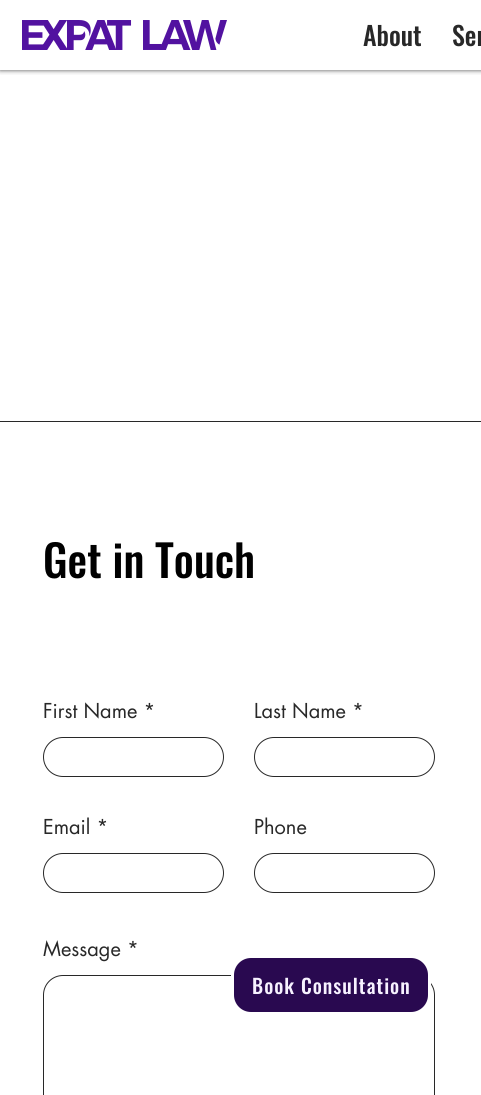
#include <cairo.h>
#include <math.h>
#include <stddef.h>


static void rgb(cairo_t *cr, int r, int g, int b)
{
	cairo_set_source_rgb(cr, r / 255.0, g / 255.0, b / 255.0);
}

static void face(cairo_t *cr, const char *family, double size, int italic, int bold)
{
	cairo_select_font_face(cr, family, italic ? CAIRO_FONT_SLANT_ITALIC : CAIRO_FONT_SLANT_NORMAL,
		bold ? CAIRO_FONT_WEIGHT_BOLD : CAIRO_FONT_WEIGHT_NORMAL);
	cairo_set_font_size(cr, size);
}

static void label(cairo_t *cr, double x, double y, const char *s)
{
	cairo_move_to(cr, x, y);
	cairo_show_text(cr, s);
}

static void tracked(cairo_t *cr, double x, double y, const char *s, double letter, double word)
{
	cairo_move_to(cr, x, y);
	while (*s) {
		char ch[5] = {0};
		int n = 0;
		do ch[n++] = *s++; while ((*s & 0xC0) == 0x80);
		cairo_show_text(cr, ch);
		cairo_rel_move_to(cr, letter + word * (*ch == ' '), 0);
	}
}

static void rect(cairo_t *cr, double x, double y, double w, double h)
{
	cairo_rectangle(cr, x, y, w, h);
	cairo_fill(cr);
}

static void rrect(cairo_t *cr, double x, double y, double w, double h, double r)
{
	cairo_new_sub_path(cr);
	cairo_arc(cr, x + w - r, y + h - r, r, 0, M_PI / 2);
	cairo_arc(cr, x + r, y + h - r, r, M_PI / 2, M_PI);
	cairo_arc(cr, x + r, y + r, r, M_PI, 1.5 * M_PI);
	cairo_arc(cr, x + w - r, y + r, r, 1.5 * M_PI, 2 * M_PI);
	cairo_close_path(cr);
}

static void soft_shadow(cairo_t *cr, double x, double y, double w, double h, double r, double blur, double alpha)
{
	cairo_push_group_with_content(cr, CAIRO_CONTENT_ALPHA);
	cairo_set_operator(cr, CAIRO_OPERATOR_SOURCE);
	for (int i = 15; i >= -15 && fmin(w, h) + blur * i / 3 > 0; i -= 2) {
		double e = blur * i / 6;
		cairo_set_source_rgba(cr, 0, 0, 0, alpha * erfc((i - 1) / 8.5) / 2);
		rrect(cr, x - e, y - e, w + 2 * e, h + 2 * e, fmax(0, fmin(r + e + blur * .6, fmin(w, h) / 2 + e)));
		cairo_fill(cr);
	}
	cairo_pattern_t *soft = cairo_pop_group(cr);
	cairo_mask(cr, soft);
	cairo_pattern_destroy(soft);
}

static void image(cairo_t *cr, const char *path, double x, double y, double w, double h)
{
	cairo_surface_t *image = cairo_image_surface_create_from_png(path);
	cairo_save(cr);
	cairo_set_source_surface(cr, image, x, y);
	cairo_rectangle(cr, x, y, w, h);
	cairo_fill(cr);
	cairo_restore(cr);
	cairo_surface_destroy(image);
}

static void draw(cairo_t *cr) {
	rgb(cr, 255, 255, 255);
	cairo_paint(cr);
	cairo_save(cr);
	cairo_rectangle(cr, 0, 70, 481, 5);
	cairo_clip(cr);
	rgb(cr, 0, 0, 0);
	soft_shadow(cr, 0, 0, 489, 70, 0, 2.5, 0.7);
	cairo_restore(cr);
	image(cr, "image0.png", 22, 20, 205, 30);
	face(cr, "Oswald Medium", 26, 0, 0);
	rgb(cr, 40, 40, 40);
	label(cr, 363, 46, "About");
	label(cr, 452, 46, "Ser");
	rect(cr, 0, 421, 481, 1);
	face(cr, "Oswald Medium", 44, 0, 0);
	rgb(cr, 0, 0, 0);
	label(cr, 43, 578, "Get in Touch");
	face(cr, "futura", 20, 0, 0);
	rgb(cr, 40, 40, 40);
	label(cr, 43, 718, "First Name *");
	rrect(cr, 43.5, 737.5, 180, 39, 19.5);
	cairo_set_line_width(cr, 1);
	cairo_stroke(cr);
	label(cr, 254, 718, "Last Name *");
	rrect(cr, 254.5, 737.5, 180, 39, 19.5);
	cairo_stroke(cr);
	label(cr, 43, 834, "Email *");
	rrect(cr, 43.5, 853.5, 180, 39, 19.5);
	cairo_stroke(cr);
	label(cr, 254, 834, "Phone");
	rrect(cr, 254.5, 853.5, 180, 39, 19.5);
	cairo_stroke(cr);
	label(cr, 43, 956, "Message *");
	rrect(cr, 43.5, 975.5, 391, 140, 19.5);
	cairo_stroke(cr);
	rgb(cr, 41, 9, 80);
	rrect(cr, 232.5, 956.5, 197, 57, 18.5);
	cairo_fill_preserve(cr);
	rgb(cr, 255, 255, 255);
	cairo_set_line_width(cr, 3);
	cairo_stroke(cr);
	face(cr, "Oswald Medium", 20, 0, 0);
	rgb(cr, 247, 242, 255);
	tracked(cr, 252, 994, "Book Consultation", 1, 0);
}

int main(void) {
	cairo_surface_t *surface = cairo_image_surface_create(CAIRO_FORMAT_RGB24, 481, 1095);
	cairo_t *cr = cairo_create(surface);
	cairo_font_options_t *options = cairo_font_options_create();
	cairo_font_options_set_hint_metrics(options, CAIRO_HINT_METRICS_OFF);
	cairo_font_options_set_hint_style(options, CAIRO_HINT_STYLE_NONE);
	cairo_set_font_options(cr, options);
	cairo_set_miter_limit(cr, 4);
	draw(cr);
	cairo_surface_write_to_png(surface, "render.png");
	cairo_font_options_destroy(options);
	cairo_destroy(cr);
	cairo_surface_destroy(surface);
	return 0;
}
